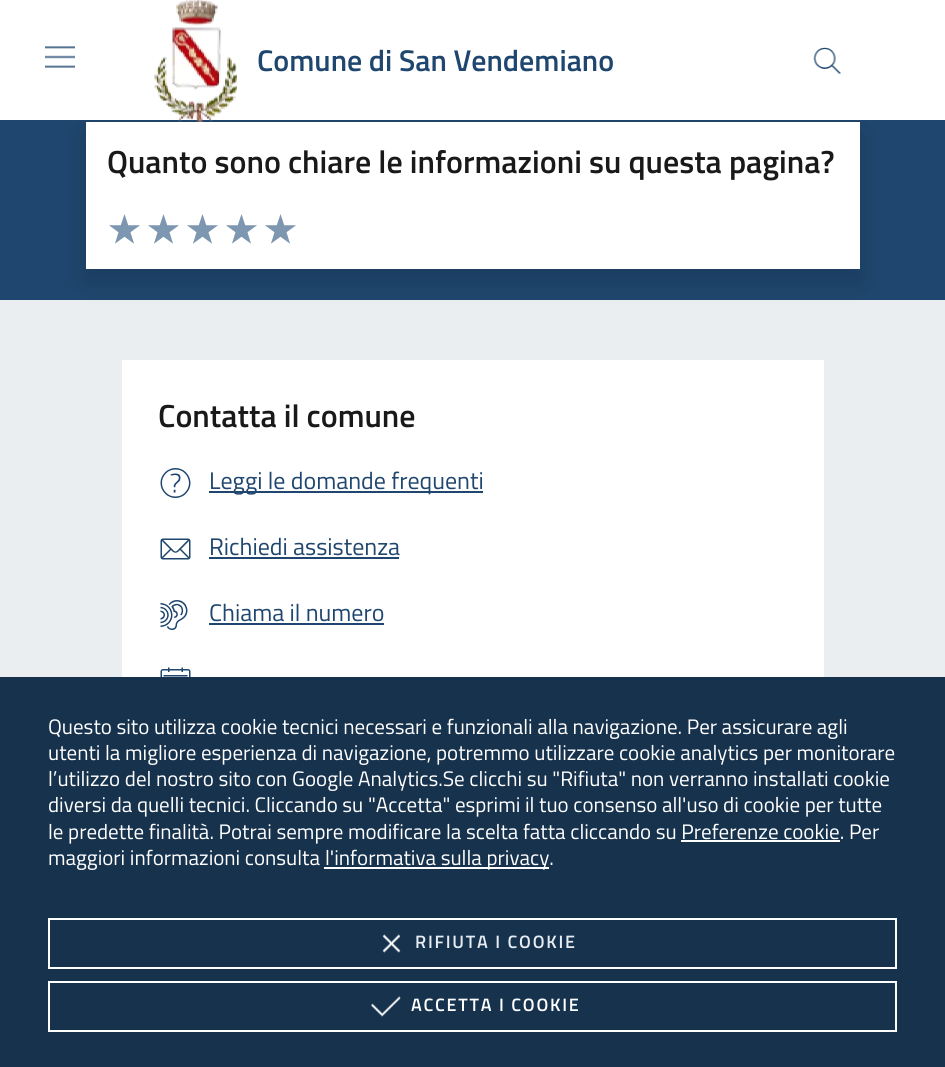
#include <cairo.h>
#include <math.h>
#include <stddef.h>


static void rgb(cairo_t *cr, int r, int g, int b)
{
	cairo_set_source_rgb(cr, r / 255.0, g / 255.0, b / 255.0);
}

static void face(cairo_t *cr, const char *family, double size, int italic, int bold)
{
	cairo_select_font_face(cr, family, italic ? CAIRO_FONT_SLANT_ITALIC : CAIRO_FONT_SLANT_NORMAL,
		bold ? CAIRO_FONT_WEIGHT_BOLD : CAIRO_FONT_WEIGHT_NORMAL);
	cairo_set_font_size(cr, size);
}

static void label(cairo_t *cr, double x, double y, const char *s)
{
	cairo_move_to(cr, x, y);
	cairo_show_text(cr, s);
}

static void tracked(cairo_t *cr, double x, double y, const char *s, double letter, double word)
{
	cairo_move_to(cr, x, y);
	while (*s) {
		char ch[5] = {0};
		int n = 0;
		do ch[n++] = *s++; while ((*s & 0xC0) == 0x80);
		cairo_show_text(cr, ch);
		cairo_rel_move_to(cr, letter + word * (*ch == ' '), 0);
	}
}

static void rect(cairo_t *cr, double x, double y, double w, double h)
{
	cairo_rectangle(cr, x, y, w, h);
	cairo_fill(cr);
}

static void rrect(cairo_t *cr, double x, double y, double w, double h, double r)
{
	cairo_new_sub_path(cr);
	cairo_arc(cr, x + w - r, y + h - r, r, 0, M_PI / 2);
	cairo_arc(cr, x + r, y + h - r, r, M_PI / 2, M_PI);
	cairo_arc(cr, x + r, y + r, r, M_PI, 1.5 * M_PI);
	cairo_arc(cr, x + w - r, y + r, r, 1.5 * M_PI, 2 * M_PI);
	cairo_close_path(cr);
}

static void soft_shadow(cairo_t *cr, double x, double y, double w, double h, double r, double blur, double alpha)
{
	cairo_push_group_with_content(cr, CAIRO_CONTENT_ALPHA);
	cairo_set_operator(cr, CAIRO_OPERATOR_SOURCE);
	for (int i = 15; i >= -15 && fmin(w, h) + blur * i / 3 > 0; i -= 2) {
		double e = blur * i / 6;
		cairo_set_source_rgba(cr, 0, 0, 0, alpha * erfc((i - 1) / 8.5) / 2);
		rrect(cr, x - e, y - e, w + 2 * e, h + 2 * e, fmax(0, fmin(r + e + blur * .6, fmin(w, h) / 2 + e)));
		cairo_fill(cr);
	}
	cairo_pattern_t *soft = cairo_pop_group(cr);
	cairo_mask(cr, soft);
	cairo_pattern_destroy(soft);
}

static void image(cairo_t *cr, const char *path, double x, double y, double w, double h)
{
	cairo_surface_t *image = cairo_image_surface_create_from_png(path);
	cairo_save(cr);
	cairo_set_source_surface(cr, image, x, y);
	cairo_rectangle(cr, x, y, w, h);
	cairo_fill(cr);
	cairo_restore(cr);
	cairo_surface_destroy(image);
}

static void draw(cairo_t *cr) {
	rgb(cr, 31, 70, 110);
	cairo_paint(cr);
	rgb(cr, 235, 238, 240);
	rect(cr, 0, 300, 945, 377);
	rgb(cr, 0, 0, 0);
	soft_shadow(cr, 86, 134, 774, 147, 0, 12, 0.15);
	rgb(cr, 255, 255, 255);
	rect(cr, 0, 0, 945, 120);
	image(cr, "image0.png", 45, 46, 30, 22);
	image(cr, "image1.png", 154, 0, 83, 122);
	face(cr, "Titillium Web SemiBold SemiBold", 30, 0, 0);
	rgb(cr, 31, 70, 110);
	label(cr, 257, 71, "Comune di San Vendemiano");
	image(cr, "image2.png", 813, 47, 28, 27);
	rgb(cr, 255, 255, 255);
	rect(cr, 86, 122, 774, 147);
	face(cr, "Titillium Web SemiBold SemiBold", 32, 0, 0);
	rgb(cr, 25, 25, 25);
	label(cr, 107, 173, "Quanto sono chiare le informazioni su questa pagina?");
	image(cr, "image3.png", 109, 214, 31, 30);
	image(cr, "image3.png", 148, 214, 31, 30);
	image(cr, "image3.png", 187, 214, 31, 30);
	image(cr, "image4.png", 226, 214, 31, 30);
	image(cr, "image3.png", 265, 214, 31, 30);
	rgb(cr, 255, 255, 255);
	rect(cr, 122, 360, 702, 317);
	rgb(cr, 25, 25, 25);
	label(cr, 158, 427, "Contatta il comune");
	image(cr, "image5.png", 160, 468, 31, 30);
	rgb(cr, 31, 70, 110);
	rect(cr, 209, 491, 274, 2);
	face(cr, "Titillium Web", 24, 0, 0);
	label(cr, 209, 489, "Leggi le domande frequenti");
	image(cr, "image6.png", 160, 538, 31, 22);
	label(cr, 209, 555, "Richiedi assistenza");
	rect(cr, 209, 557, 190, 2);
	image(cr, "image7.png", 160, 600, 28, 30);
	label(cr, 209, 621, "Chiama il numero");
	rect(cr, 209, 623, 175, 2);
	image(cr, "image8.png", 160, 667, 31, 10);
	rgb(cr, 23, 50, 77);
	rect(cr, 0, 677, 945, 390);
	face(cr, "Titillium Web", 21, 0, 0);
	rgb(cr, 255, 255, 255);
	label(cr, 48, 734, "Questo sito utilizza cookie tecnici necessari e funzionali alla navigazione. Per assicurare agli");
	label(cr, 48, 760, "utenti la migliore esperienza di navigazione, potremmo utilizzare cookie analytics per monitorare");
	label(cr, 48, 786, "l’utilizzo del nostro sito con Google Analytics.Se clicchi su \"Rifiuta\" non verranno installati cookie");
	label(cr, 48, 812, "diversi da quelli tecnici. Cliccando su \"Accetta\" esprimi il tuo consenso all'uso di cookie per tutte");
	label(cr, 48, 839, "le predette finalità. Potrai sempre modificare la scelta fatta cliccando su Preferenze cookie. Per");
	rect(cr, 681, 840, 159, 2);
	label(cr, 48, 865, "maggiori informazioni consulta");
	rect(cr, 324, 867, 225, 2);
	label(cr, 325, 865, "l'informativa sulla privacy.");
	cairo_rectangle(cr, 49, 919, 847, 49);
	cairo_stroke(cr);
	image(cr, "image9.png", 382, 934, 19, 19);
	face(cr, "Titillium Web SemiBold SemiBold", 18, 0, 0);
	rgb(cr, 230, 236, 242);
	tracked(cr, 415, 948, "RIFIUTA I COOKIE", 1.75, 0);
	cairo_rectangle(cr, 49, 982, 847, 49);
	rgb(cr, 255, 255, 255);
	cairo_stroke(cr);
	image(cr, "image10.png", 371, 996, 30, 21);
	tracked(cr, 411, 1011, "ACCETTA I COOKIE", 1.75, 0);
}

int main(void) {
	cairo_surface_t *surface = cairo_image_surface_create(CAIRO_FORMAT_RGB24, 945, 1067);
	cairo_t *cr = cairo_create(surface);
	cairo_font_options_t *options = cairo_font_options_create();
	cairo_font_options_set_hint_metrics(options, CAIRO_HINT_METRICS_OFF);
	cairo_font_options_set_hint_style(options, CAIRO_HINT_STYLE_NONE);
	cairo_set_font_options(cr, options);
	cairo_set_miter_limit(cr, 4);
	draw(cr);
	cairo_surface_write_to_png(surface, "render.png");
	cairo_font_options_destroy(options);
	cairo_destroy(cr);
	cairo_surface_destroy(surface);
	return 0;
}
